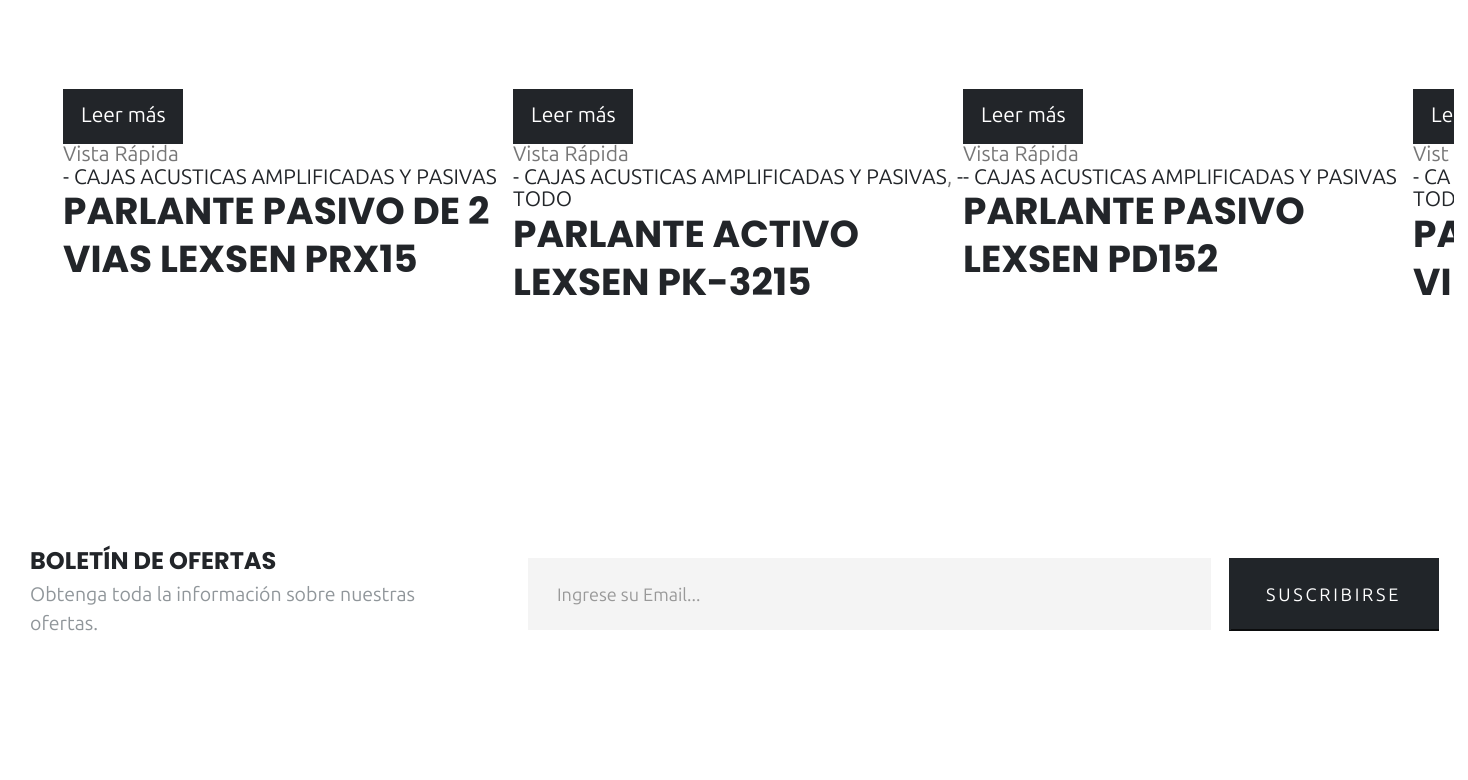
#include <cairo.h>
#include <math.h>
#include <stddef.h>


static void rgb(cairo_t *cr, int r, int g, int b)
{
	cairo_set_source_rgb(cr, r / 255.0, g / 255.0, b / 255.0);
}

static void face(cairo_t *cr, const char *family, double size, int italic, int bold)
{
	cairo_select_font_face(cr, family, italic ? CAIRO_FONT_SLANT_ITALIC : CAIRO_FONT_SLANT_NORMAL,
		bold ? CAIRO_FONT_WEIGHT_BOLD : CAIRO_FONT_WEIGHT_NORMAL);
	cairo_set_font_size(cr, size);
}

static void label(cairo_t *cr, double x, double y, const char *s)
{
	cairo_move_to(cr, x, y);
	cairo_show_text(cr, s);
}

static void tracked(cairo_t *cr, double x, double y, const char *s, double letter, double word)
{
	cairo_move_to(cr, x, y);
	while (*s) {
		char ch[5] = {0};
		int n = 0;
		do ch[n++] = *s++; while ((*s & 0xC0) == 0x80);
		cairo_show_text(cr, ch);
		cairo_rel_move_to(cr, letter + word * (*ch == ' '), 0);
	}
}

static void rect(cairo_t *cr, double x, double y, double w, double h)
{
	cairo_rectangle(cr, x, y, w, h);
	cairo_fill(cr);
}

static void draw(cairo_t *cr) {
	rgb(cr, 255, 255, 255);
	cairo_paint(cr);
	rgb(cr, 34, 37, 41);
	rect(cr, 63, 89, 120, 55);
	face(cr, "Ubuntu", 21, 0, 0);
	rgb(cr, 255, 255, 255);
	label(cr, 81, 122, "Leer más");
	rgb(cr, 119, 119, 119);
	label(cr, 63, 161, "Vista Rápida");
	rgb(cr, 34, 37, 41);
	label(cr, 63, 184, "- CAJAS ACUSTICAS AMPLIFICADAS Y PASIVAS");
	face(cr, "Poppins", 37.5, 0, 1);
	label(cr, 63, 224, "PARLANTE PASIVO DE 2");
	label(cr, 63, 272, "VIAS LEXSEN PRX15");
	rect(cr, 513, 89, 120, 55);
	face(cr, "Ubuntu", 21, 0, 0);
	rgb(cr, 255, 255, 255);
	label(cr, 531, 122, "Leer más");
	rgb(cr, 119, 119, 119);
	label(cr, 513, 161, "Vista Rápida");
	rgb(cr, 34, 37, 41);
	label(cr, 513, 184, "- CAJAS ACUSTICAS AMPLIFICADAS Y PASIVAS");
	rgb(cr, 119, 119, 119);
	label(cr, 947, 184, ",");
	rgb(cr, 34, 37, 41);
	label(cr, 957, 184, "-- CAJAS ACUSTICAS AMPLIFICADAS Y PASIVAS");
	label(cr, 513, 206, "TODO");
	face(cr, "Poppins", 37.5, 0, 1);
	label(cr, 513, 247, "PARLANTE ACTIVO");
	label(cr, 513, 295, "LEXSEN PK-3215");
	rect(cr, 963, 89, 120, 55);
	face(cr, "Ubuntu", 21, 0, 0);
	rgb(cr, 255, 255, 255);
	label(cr, 981, 122, "Leer más");
	rgb(cr, 119, 119, 119);
	label(cr, 963, 161, "Vista Rápida");
	face(cr, "Poppins", 37.5, 0, 1);
	rgb(cr, 34, 37, 41);
	label(cr, 963, 224, "PARLANTE PASIVO");
	label(cr, 963, 272, "LEXSEN PD152");
	rect(cr, 1413, 89, 41, 55);
	face(cr, "Ubuntu", 21, 0, 0);
	rgb(cr, 255, 255, 255);
	label(cr, 1431, 122, "Le");
	rgb(cr, 119, 119, 119);
	label(cr, 1413, 161, "Vist");
	rgb(cr, 34, 37, 41);
	label(cr, 1413, 184, "- CA");
	cairo_save(cr);
	cairo_rectangle(cr, 15, 0, 1439, 425);
	cairo_clip(cr);
	label(cr, 1413, 206, "TOD");
	face(cr, "Poppins", 37.5, 0, 1);
	label(cr, 1413, 247, "PA");
	cairo_restore(cr);
	face(cr, "Poppins", 37.5, 0, 1);
	label(cr, 1413, 295, "VI");
	face(cr, "Poppins", 24, 0, 1);
	label(cr, 30, 569, "BOLETÍN DE OFERTAS");
	face(cr, "Ubuntu", 19.5, 0, 0);
	rgb(cr, 144, 150, 154);
	label(cr, 30, 601, "Obtenga toda la información sobre nuestras");
	label(cr, 30, 630, "ofertas.");
	rgb(cr, 244, 244, 244);
	rect(cr, 528, 558, 683, 72);
	face(cr, "Ubuntu", 18, 0, 0);
	rgb(cr, 153, 153, 153);
	label(cr, 557, 601, "Ingrese su Email...");
	rgb(cr, 33, 37, 41);
	rect(cr, 1231, 558, 208, 71);
	rgb(cr, 11, 12, 13);
	rect(cr, 1229, 629, 210, 2);
	rgb(cr, 33, 37, 41);
	rect(cr, 1229, 558, 2, 72);
	rgb(cr, 255, 255, 255);
	tracked(cr, 1266, 601, "SUSCRIBIRSE", 2.75, 0);
}

int main(void) {
	cairo_surface_t *surface = cairo_image_surface_create(CAIRO_FORMAT_RGB24, 1468, 780);
	cairo_t *cr = cairo_create(surface);
	cairo_font_options_t *options = cairo_font_options_create();
	cairo_font_options_set_hint_metrics(options, CAIRO_HINT_METRICS_OFF);
	cairo_font_options_set_hint_style(options, CAIRO_HINT_STYLE_NONE);
	cairo_set_font_options(cr, options);
	cairo_set_miter_limit(cr, 4);
	draw(cr);
	cairo_surface_write_to_png(surface, "render.png");
	cairo_font_options_destroy(options);
	cairo_destroy(cr);
	cairo_surface_destroy(surface);
	return 0;
}
